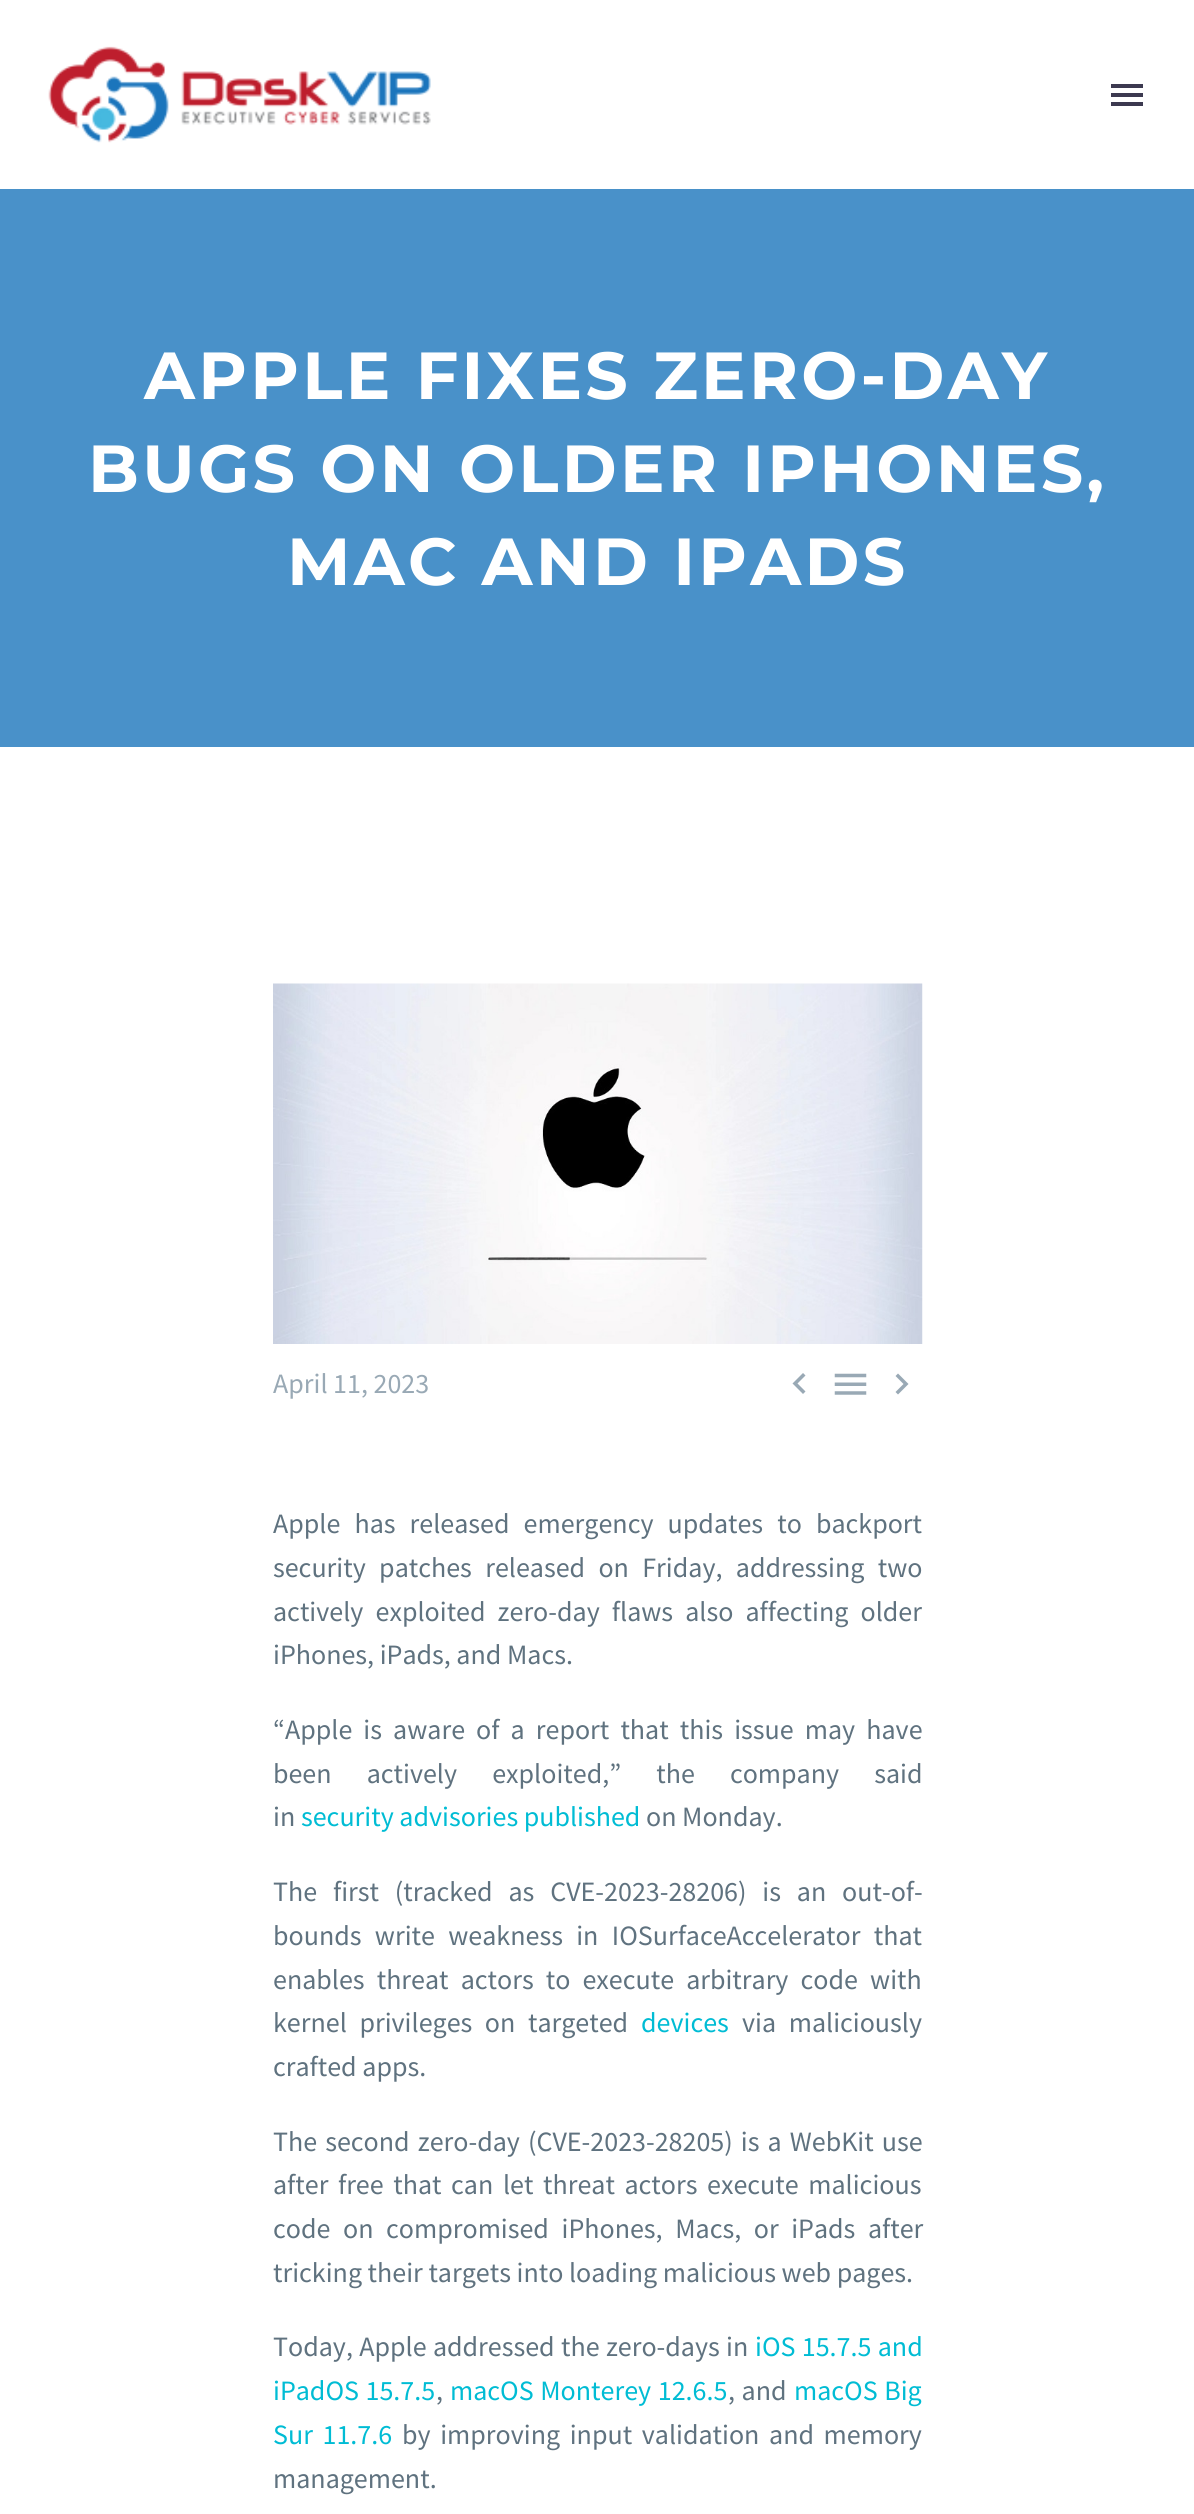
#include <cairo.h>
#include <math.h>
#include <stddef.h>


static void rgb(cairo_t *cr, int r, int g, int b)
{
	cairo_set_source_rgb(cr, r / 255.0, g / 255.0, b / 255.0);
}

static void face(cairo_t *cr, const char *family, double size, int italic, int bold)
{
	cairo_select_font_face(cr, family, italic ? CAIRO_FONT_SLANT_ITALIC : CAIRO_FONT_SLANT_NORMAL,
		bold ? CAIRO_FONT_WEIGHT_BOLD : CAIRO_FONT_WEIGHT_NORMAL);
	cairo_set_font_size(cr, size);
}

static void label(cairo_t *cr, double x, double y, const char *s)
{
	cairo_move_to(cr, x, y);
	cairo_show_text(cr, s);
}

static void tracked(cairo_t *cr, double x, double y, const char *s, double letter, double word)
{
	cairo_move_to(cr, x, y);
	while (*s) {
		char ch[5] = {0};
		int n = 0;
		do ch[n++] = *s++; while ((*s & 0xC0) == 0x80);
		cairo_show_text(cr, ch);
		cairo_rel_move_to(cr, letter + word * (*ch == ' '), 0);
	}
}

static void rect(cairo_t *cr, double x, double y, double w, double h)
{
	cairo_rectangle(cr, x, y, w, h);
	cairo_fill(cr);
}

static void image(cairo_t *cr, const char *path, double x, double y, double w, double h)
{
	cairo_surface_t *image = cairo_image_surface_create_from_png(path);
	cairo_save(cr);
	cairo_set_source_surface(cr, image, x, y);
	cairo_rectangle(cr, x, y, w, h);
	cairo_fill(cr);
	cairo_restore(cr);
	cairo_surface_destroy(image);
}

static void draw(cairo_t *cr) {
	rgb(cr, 255, 255, 255);
	cairo_paint(cr);
	rgb(cr, 73, 145, 201);
	rect(cr, 0, 189, 1194, 558);
	image(cr, "image0.png", 48, 46, 383, 97);
	rgb(cr, 60, 57, 80);
	rect(cr, 1111, 84, 32, 4);
	rect(cr, 1111, 93, 32, 4);
	rect(cr, 1111, 102, 32, 4);
	face(cr, "Montserrat", 66.5, 0, 1);
	rgb(cr, 255, 255, 255);
	tracked(cr, 144, 399, "APPLE FIXES ZERO-DAY", 3.3, 0);
	tracked(cr, 88, 492, "BUGS ON OLDER IPHONES,", 3.3, 0);
	tracked(cr, 287, 585, "MAC AND IPADS", 3.3, 0);
	image(cr, "image1.png", 273, 983, 650, 361);
	face(cr, "Source Sans Pro", 28, 0, 0);
	rgb(cr, 153, 169, 181);
	label(cr, 273, 1393, "April 11, 2023");
	cairo_new_path(cr);
	cairo_move_to(cr, 805.5, 1391.5);
	cairo_line_to(cr, 797.5, 1383.5);
	cairo_line_to(cr, 805.5, 1375.5);
	cairo_line_to(cr, 803, 1373);
	cairo_line_to(cr, 792.5, 1383.5);
	cairo_line_to(cr, 803, 1394);
	cairo_close_path(cr);
	cairo_fill(cr);
	image(cr, "image2.png", 834, 1373, 33, 22);
	cairo_new_path(cr);
	cairo_move_to(cr, 895.5, 1392);
	cairo_line_to(cr, 903.5, 1384);
	cairo_line_to(cr, 895.5, 1376);
	cairo_line_to(cr, 898, 1373.5);
	cairo_line_to(cr, 908.5, 1384);
	cairo_line_to(cr, 898, 1394.5);
	cairo_close_path(cr);
	cairo_fill(cr);
	rgb(cr, 95, 114, 127);
	tracked(cr, 273, 1533, "Apple has released emergency updates to backport", 0, 8.5);
	tracked(cr, 273, 1577, "security patches released on Friday, addressing two", 0, 7.75);
	tracked(cr, 273, 1621, "actively exploited zero-day flaws also affecting older", 0, 6.5);
	label(cr, 273, 1664, "iPhones, iPads, and Macs.");
	tracked(cr, 273, 1739, "“Apple is aware of a report that this issue may have", 0, 5.5);
	tracked(cr, 273, 1783, "been actively exploited,” the company said", 0, 29.5);
	label(cr, 273, 1826, "in");
	rgb(cr, 0, 188, 212);
	label(cr, 301, 1826, "security advisories published");
	rgb(cr, 95, 114, 127);
	label(cr, 646, 1826, "on Monday.");
	tracked(cr, 273, 1901, "The first (tracked as CVE-2023-28206) is an out-of-", 0, 10.25);
	tracked(cr, 273, 1945, "bounds write weakness in IOSurfaceAccelerator that", 0, 7.75);
	tracked(cr, 273, 1989, "enables threat actors to execute arbitrary code with", 0, 6.5);
	tracked(cr, 273, 2032, "kernel privileges on targeted", 0, 7);
	rgb(cr, 0, 188, 212);
	label(cr, 641, 2032, "devices");
	rgb(cr, 95, 114, 127);
	tracked(cr, 742, 2032, "via maliciously", 0, 7);
	label(cr, 273, 2076, "crafted apps.");
	tracked(cr, 273, 2151, "The second zero-day (CVE-2023-28205) is a WebKit use", 0, 2.5);
	tracked(cr, 273, 2194, "after free that can let threat actors execute malicious", 0, 4);
	tracked(cr, 273, 2238, "code on compromised iPhones, Macs, or iPads after", 0, 7);
	label(cr, 273, 2282, "tricking their targets into loading malicious web pages.");
	tracked(cr, 273, 2356, "Today, Apple addressed the zero-days in", 0, 0.75);
	rgb(cr, 0, 188, 212);
	tracked(cr, 755, 2356, "iOS 15.7.5 and", 0, 0.75);
	tracked(cr, 273, 2400, "iPadOS 15.7.5", 0, 1);
	rgb(cr, 95, 114, 127);
	label(cr, 436, 2400, ",");
	rgb(cr, 0, 188, 212);
	tracked(cr, 450, 2400, "macOS Monterey 12.6.5", 0, 1);
	rgb(cr, 95, 114, 127);
	tracked(cr, 728, 2400, ", and", 0, 1);
	rgb(cr, 0, 188, 212);
	tracked(cr, 794, 2400, "macOS Big", 0, 1);
	tracked(cr, 273, 2444, "Sur 11.7.6", 0, 4);
	rgb(cr, 95, 114, 127);
	tracked(cr, 402, 2444, "by improving input validation and memory", 0, 4);
	label(cr, 273, 2488, "management.");
}

int main(void) {
	cairo_surface_t *surface = cairo_image_surface_create(CAIRO_FORMAT_RGB24, 1194, 2514);
	cairo_t *cr = cairo_create(surface);
	cairo_font_options_t *options = cairo_font_options_create();
	cairo_font_options_set_hint_metrics(options, CAIRO_HINT_METRICS_OFF);
	cairo_font_options_set_hint_style(options, CAIRO_HINT_STYLE_NONE);
	cairo_set_font_options(cr, options);
	cairo_set_miter_limit(cr, 4);
	draw(cr);
	cairo_surface_write_to_png(surface, "render.png");
	cairo_font_options_destroy(options);
	cairo_destroy(cr);
	cairo_surface_destroy(surface);
	return 0;
}
